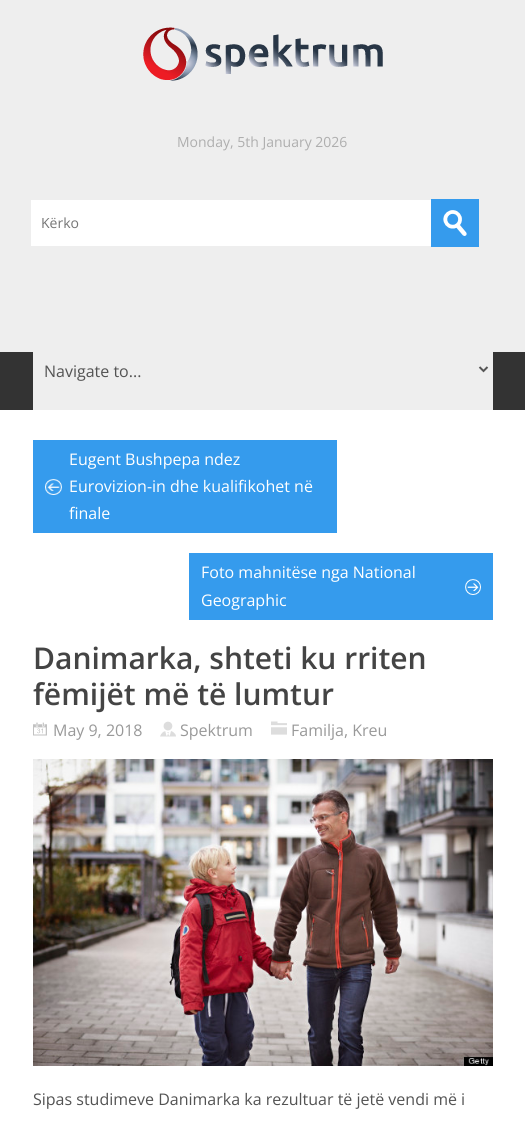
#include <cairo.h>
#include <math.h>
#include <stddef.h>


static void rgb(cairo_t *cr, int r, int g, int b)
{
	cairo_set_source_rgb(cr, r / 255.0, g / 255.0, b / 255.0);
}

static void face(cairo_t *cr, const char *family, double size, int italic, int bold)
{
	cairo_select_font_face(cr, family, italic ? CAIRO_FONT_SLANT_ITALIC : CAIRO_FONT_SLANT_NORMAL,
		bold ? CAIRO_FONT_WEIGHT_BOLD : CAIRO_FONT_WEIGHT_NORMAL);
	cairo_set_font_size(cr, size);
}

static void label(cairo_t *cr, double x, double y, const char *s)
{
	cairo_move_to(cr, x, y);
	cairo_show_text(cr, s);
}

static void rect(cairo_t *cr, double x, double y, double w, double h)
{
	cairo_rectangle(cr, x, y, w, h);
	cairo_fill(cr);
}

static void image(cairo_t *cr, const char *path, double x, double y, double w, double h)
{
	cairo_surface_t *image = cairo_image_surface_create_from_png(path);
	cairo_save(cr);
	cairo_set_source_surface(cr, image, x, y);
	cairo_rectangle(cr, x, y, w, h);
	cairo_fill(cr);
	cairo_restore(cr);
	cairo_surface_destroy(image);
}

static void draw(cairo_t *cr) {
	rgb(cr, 255, 255, 255);
	cairo_paint(cr);
	rgb(cr, 238, 238, 238);
	rect(cr, 0, 0, 525, 352);
	image(cr, "image0.png", 143, 27, 240, 54);
	face(cr, "Open Sans", 14, 0, 0);
	rgb(cr, 174, 174, 174);
	label(cr, 177, 147, "Monday, 5th January 2026");
	rgb(cr, 255, 255, 255);
	rect(cr, 31, 200, 400, 46);
	rgb(cr, 117, 117, 117);
	label(cr, 41, 228, "Kërko");
	image(cr, "image1.png", 431, 199, 48, 48);
	rgb(cr, 51, 51, 51);
	rect(cr, 0, 352, 525, 58);
	rgb(cr, 238, 238, 238);
	rect(cr, 33, 352, 460, 58);
	cairo_new_path(cr);
	cairo_move_to(cr, 479.5, 367);
	cairo_line_to(cr, 483.5, 371);
	cairo_line_to(cr, 487.5, 367);
	rgb(cr, 85, 85, 85);
	cairo_stroke(cr);
	face(cr, "Open Sans", 16, 0, 0);
	rgb(cr, 83, 83, 83);
	label(cr, 44, 377, "Navigate to...");
	rgb(cr, 53, 155, 237);
	rect(cr, 33, 440, 304, 93);
	image(cr, "image2.png", 45, 479, 17, 16);
	rgb(cr, 255, 255, 255);
	label(cr, 69, 465, "Eugent Bushpepa ndez");
	label(cr, 69, 492, "Eurovizion-in dhe kualifikohet në");
	label(cr, 69, 519, "finale");
	rgb(cr, 53, 155, 237);
	rect(cr, 189, 553, 304, 67);
	image(cr, "image3.png", 465, 579, 16, 16);
	rgb(cr, 255, 255, 255);
	label(cr, 201, 578, "Foto mahnitëse nga National");
	label(cr, 201, 606, "Geographic");
	face(cr, "Open Sans SemiBold", 30, 0, 0);
	rgb(cr, 68, 68, 68);
	label(cr, 33, 669, "Danimarka, shteti ku rriten");
	label(cr, 33, 705, "fëmijët më të lumtur");
	image(cr, "image4.png", 33, 722, 14, 14);
	face(cr, "Open Sans", 16, 0, 0);
	rgb(cr, 153, 153, 153);
	label(cr, 53, 736, "May 9, 2018");
	image(cr, "image5.png", 160, 721, 16, 16);
	label(cr, 180, 736, "Spektrum");
	image(cr, "image6.png", 271, 721, 16, 14);
	label(cr, 291, 736, "Familja, Kreu");
	image(cr, "image7.png", 33, 759, 460, 307);
	rgb(cr, 83, 83, 83);
	label(cr, 33, 1105, "Sipas studimeve Danimarka ka rezultuar të jetë vendi më i");
}

int main(void) {
	cairo_surface_t *surface = cairo_image_surface_create(CAIRO_FORMAT_RGB24, 525, 1122);
	cairo_t *cr = cairo_create(surface);
	cairo_font_options_t *options = cairo_font_options_create();
	cairo_font_options_set_hint_metrics(options, CAIRO_HINT_METRICS_OFF);
	cairo_font_options_set_hint_style(options, CAIRO_HINT_STYLE_NONE);
	cairo_set_font_options(cr, options);
	cairo_set_miter_limit(cr, 4);
	draw(cr);
	cairo_surface_write_to_png(surface, "render.png");
	cairo_font_options_destroy(options);
	cairo_destroy(cr);
	cairo_surface_destroy(surface);
	return 0;
}
